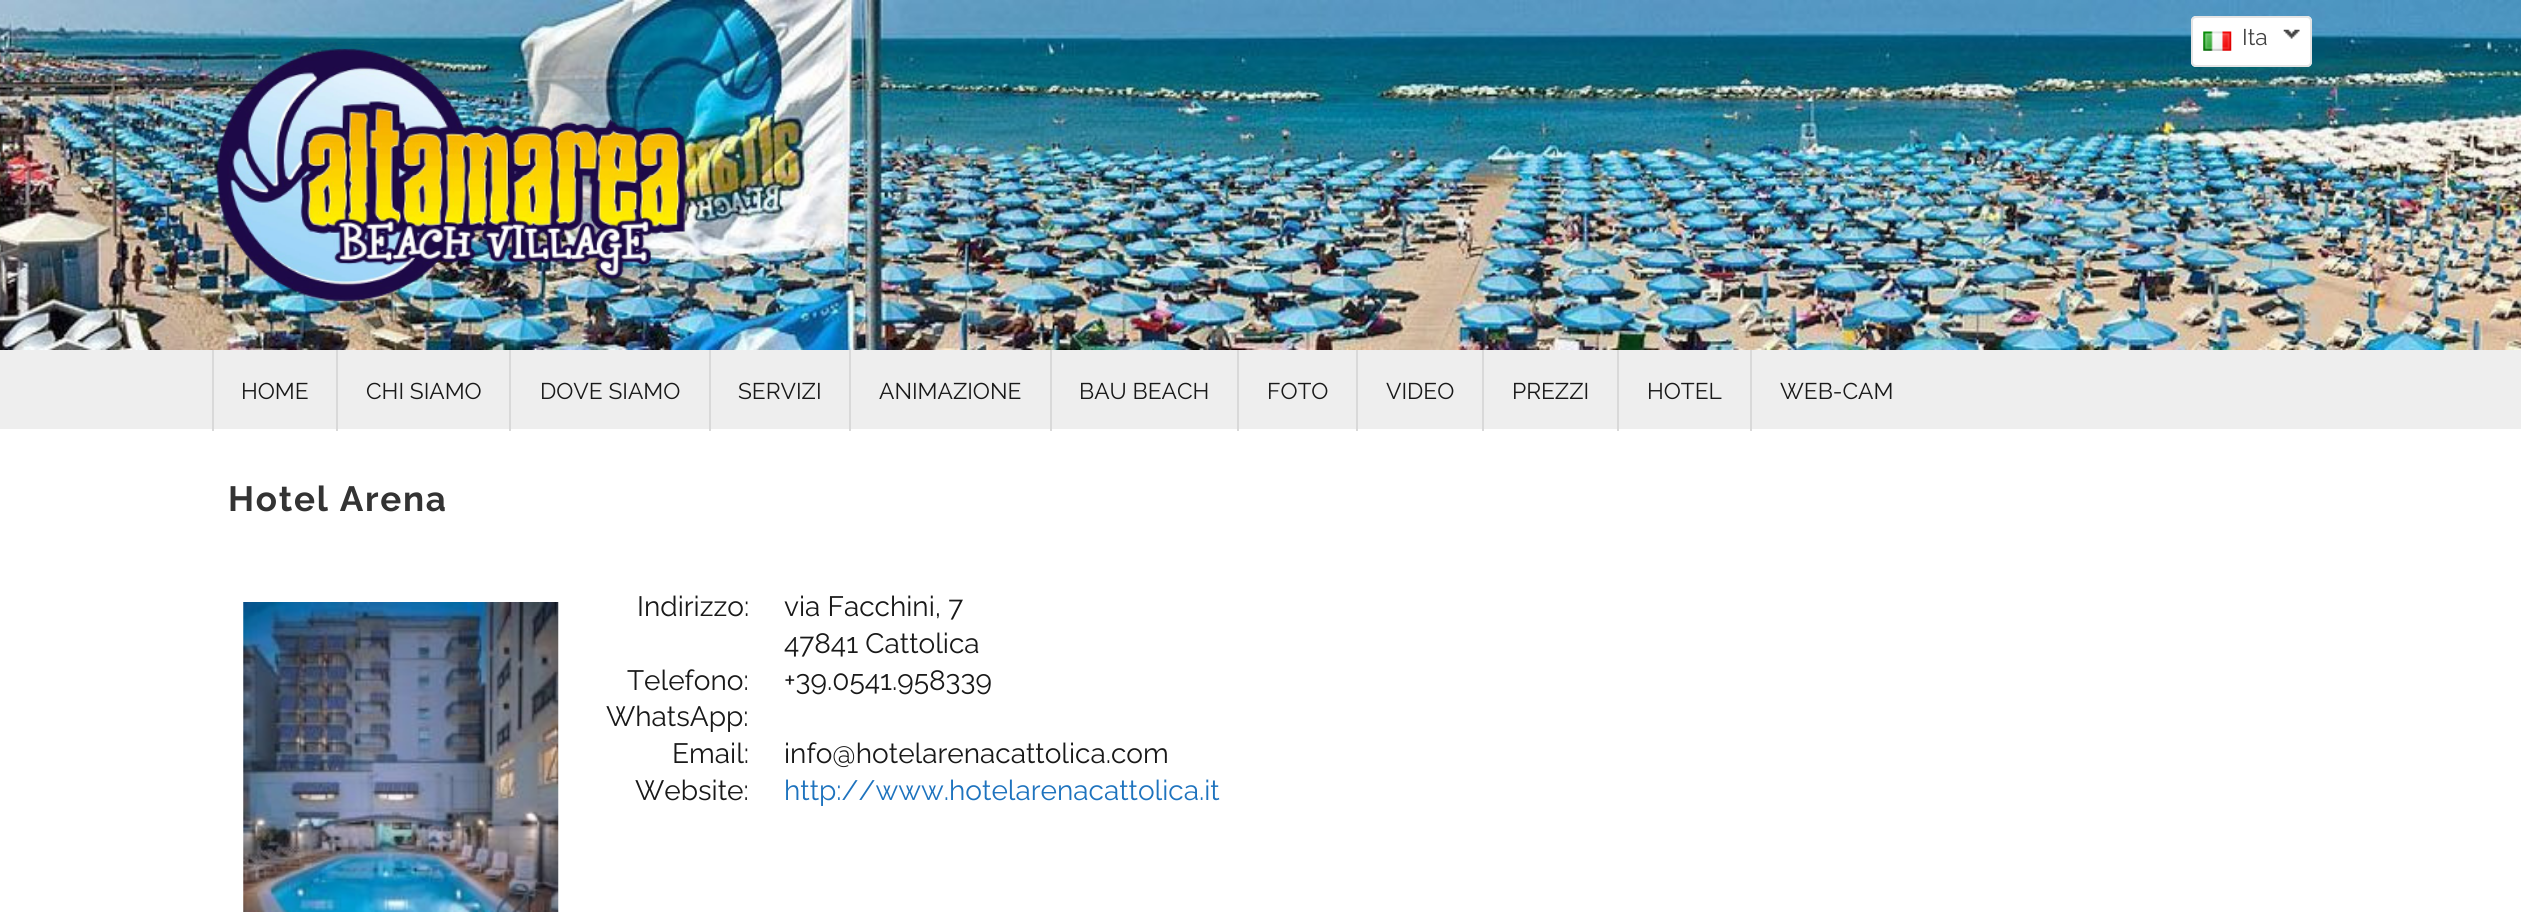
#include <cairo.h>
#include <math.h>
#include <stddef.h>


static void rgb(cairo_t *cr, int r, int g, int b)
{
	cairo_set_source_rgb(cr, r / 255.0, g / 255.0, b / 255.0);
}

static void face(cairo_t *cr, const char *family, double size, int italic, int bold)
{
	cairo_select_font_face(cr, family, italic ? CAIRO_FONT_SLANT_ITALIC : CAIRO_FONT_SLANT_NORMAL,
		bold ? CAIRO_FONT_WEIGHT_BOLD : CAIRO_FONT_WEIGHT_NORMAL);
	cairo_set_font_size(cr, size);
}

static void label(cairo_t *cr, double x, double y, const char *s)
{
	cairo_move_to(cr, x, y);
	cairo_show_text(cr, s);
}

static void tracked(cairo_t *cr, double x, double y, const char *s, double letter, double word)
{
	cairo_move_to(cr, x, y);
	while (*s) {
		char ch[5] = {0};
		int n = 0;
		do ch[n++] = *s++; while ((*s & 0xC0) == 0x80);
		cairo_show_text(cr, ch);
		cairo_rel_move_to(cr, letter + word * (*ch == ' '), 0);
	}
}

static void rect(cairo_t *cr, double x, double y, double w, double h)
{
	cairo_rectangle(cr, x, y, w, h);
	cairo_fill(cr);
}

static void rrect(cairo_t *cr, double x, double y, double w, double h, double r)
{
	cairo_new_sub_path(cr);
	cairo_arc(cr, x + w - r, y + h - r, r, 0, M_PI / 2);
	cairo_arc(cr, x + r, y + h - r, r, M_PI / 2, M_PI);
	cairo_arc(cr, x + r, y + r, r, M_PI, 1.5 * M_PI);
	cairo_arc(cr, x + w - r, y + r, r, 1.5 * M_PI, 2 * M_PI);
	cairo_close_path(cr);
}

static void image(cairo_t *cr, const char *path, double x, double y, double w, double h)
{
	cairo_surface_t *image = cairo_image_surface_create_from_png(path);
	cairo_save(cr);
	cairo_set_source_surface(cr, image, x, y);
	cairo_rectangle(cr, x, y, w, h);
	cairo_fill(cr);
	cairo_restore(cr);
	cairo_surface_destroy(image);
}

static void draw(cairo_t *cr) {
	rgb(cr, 255, 255, 255);
	cairo_paint(cr);
	image(cr, "image0.png", 0, 0, 2521, 350);
	rgb(cr, 255, 255, 255);
	rrect(cr, 2191, 16, 121, 51, 5);
	cairo_fill(cr);
	image(cr, "image1.png", 2203, 31, 29, 20);
	rrect(cr, 2192, 17, 119, 49, 4);
	rgb(cr, 229, 229, 229);
	cairo_stroke(cr);
	face(cr, "Raleway", 22.75, 0, 0);
	rgb(cr, 68, 68, 68);
	label(cr, 2242, 45, "Ita");
	image(cr, "image2.png", 2283, 29, 17, 10);
	image(cr, "image3.png", 213, 44, 474, 259);
	rgb(cr, 238, 238, 238);
	rect(cr, 0, 350, 2521, 79);
	rgb(cr, 217, 217, 217);
	rect(cr, 212, 350, 2, 81);
	rgb(cr, 25, 25, 25);
	label(cr, 241, 399, "HOME");
	rgb(cr, 217, 217, 217);
	rect(cr, 336, 350, 2, 81);
	rgb(cr, 25, 25, 25);
	label(cr, 366, 399, "CHI SIAMO");
	rgb(cr, 217, 217, 217);
	rect(cr, 509, 350, 2, 81);
	rgb(cr, 25, 25, 25);
	label(cr, 540, 399, "DOVE SIAMO");
	rgb(cr, 217, 217, 217);
	rect(cr, 709, 350, 2, 81);
	rgb(cr, 25, 25, 25);
	label(cr, 738, 399, "SERVIZI");
	rgb(cr, 217, 217, 217);
	rect(cr, 849, 350, 2, 81);
	rgb(cr, 25, 25, 25);
	label(cr, 879, 399, "ANIMAZIONE");
	rgb(cr, 217, 217, 217);
	rect(cr, 1050, 350, 2, 81);
	rgb(cr, 25, 25, 25);
	label(cr, 1079, 399, "BAU BEACH");
	rgb(cr, 217, 217, 217);
	rect(cr, 1237, 350, 2, 81);
	rgb(cr, 25, 25, 25);
	label(cr, 1267, 399, "FOTO");
	rgb(cr, 217, 217, 217);
	rect(cr, 1356, 350, 2, 81);
	rgb(cr, 25, 25, 25);
	label(cr, 1386, 399, "VIDEO");
	rgb(cr, 217, 217, 217);
	rect(cr, 1482, 350, 2, 81);
	rgb(cr, 25, 25, 25);
	label(cr, 1512, 399, "PREZZI");
	rgb(cr, 217, 217, 217);
	rect(cr, 1617, 350, 2, 81);
	rgb(cr, 25, 25, 25);
	label(cr, 1647, 399, "HOTEL");
	rgb(cr, 217, 217, 217);
	rect(cr, 1750, 350, 2, 81);
	rgb(cr, 25, 25, 25);
	label(cr, 1780, 399, "WEB-CAM");
	face(cr, "Raleway", 35, 0, 1);
	rgb(cr, 51, 51, 51);
	tracked(cr, 228, 511, "Hotel Arena", 1.75, 0);
	image(cr, "image4.png", 243, 602, 316, 310);
	face(cr, "Raleway", 28, 0, 0);
	rgb(cr, 25, 25, 25);
	label(cr, 637, 616, "Indirizzo:");
	label(cr, 627, 690, "Telefono:");
	label(cr, 606, 726, "WhatsApp:");
	label(cr, 672, 763, "Email:");
	label(cr, 635, 800, "Website:");
	label(cr, 784, 616, "via Facchini, 7");
	label(cr, 784, 653, "47841 Cattolica");
	label(cr, 784, 690, "+39.0541.958339");
	label(cr, 784, 763, "info@hotelarenacattolica.com");
	rgb(cr, 30, 115, 190);
	label(cr, 784, 800, "http://www.hotelarenacattolica.it");
}

int main(void) {
	cairo_surface_t *surface = cairo_image_surface_create(CAIRO_FORMAT_RGB24, 2521, 912);
	cairo_t *cr = cairo_create(surface);
	cairo_font_options_t *options = cairo_font_options_create();
	cairo_font_options_set_hint_metrics(options, CAIRO_HINT_METRICS_OFF);
	cairo_font_options_set_hint_style(options, CAIRO_HINT_STYLE_NONE);
	cairo_set_font_options(cr, options);
	cairo_set_miter_limit(cr, 4);
	draw(cr);
	cairo_surface_write_to_png(surface, "render.png");
	cairo_font_options_destroy(options);
	cairo_destroy(cr);
	cairo_surface_destroy(surface);
	return 0;
}
